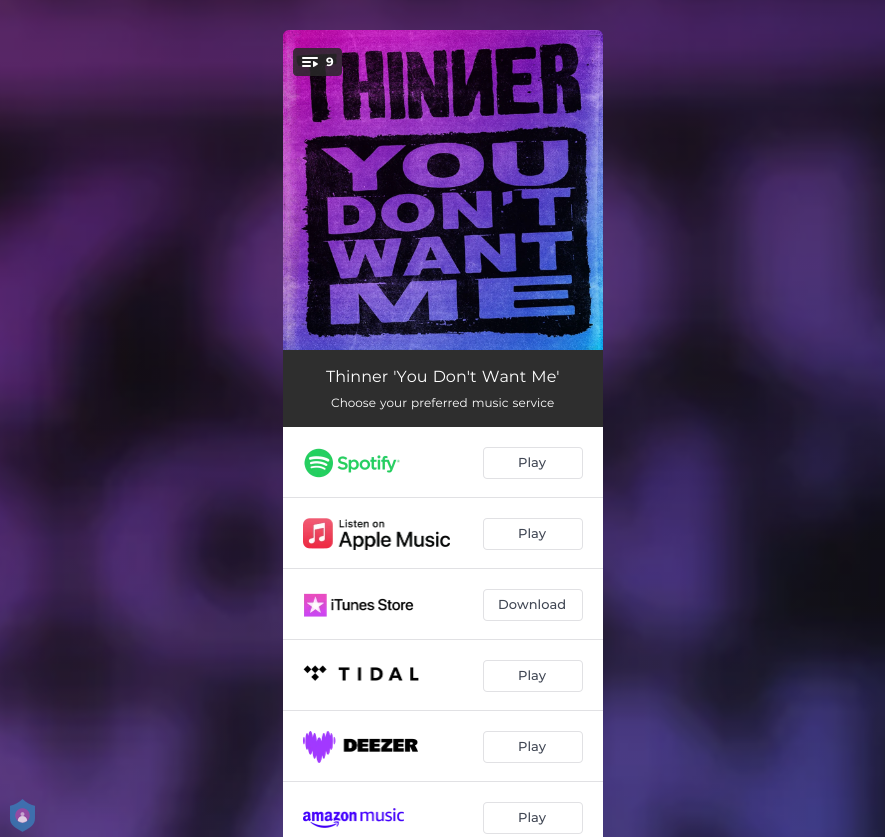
#include <cairo.h>
#include <math.h>
#include <stddef.h>


static void rgb(cairo_t *cr, int r, int g, int b)
{
	cairo_set_source_rgb(cr, r / 255.0, g / 255.0, b / 255.0);
}

static void face(cairo_t *cr, const char *family, double size, int italic, int bold)
{
	cairo_select_font_face(cr, family, italic ? CAIRO_FONT_SLANT_ITALIC : CAIRO_FONT_SLANT_NORMAL,
		bold ? CAIRO_FONT_WEIGHT_BOLD : CAIRO_FONT_WEIGHT_NORMAL);
	cairo_set_font_size(cr, size);
}

static void label(cairo_t *cr, double x, double y, const char *s)
{
	cairo_move_to(cr, x, y);
	cairo_show_text(cr, s);
}

static void tracked(cairo_t *cr, double x, double y, const char *s, double letter, double word)
{
	cairo_move_to(cr, x, y);
	while (*s) {
		char ch[5] = {0};
		int n = 0;
		do ch[n++] = *s++; while ((*s & 0xC0) == 0x80);
		cairo_show_text(cr, ch);
		cairo_rel_move_to(cr, letter + word * (*ch == ' '), 0);
	}
}

static void rect(cairo_t *cr, double x, double y, double w, double h)
{
	cairo_rectangle(cr, x, y, w, h);
	cairo_fill(cr);
}

static void rrect(cairo_t *cr, double x, double y, double w, double h, double r)
{
	cairo_new_sub_path(cr);
	cairo_arc(cr, x + w - r, y + h - r, r, 0, M_PI / 2);
	cairo_arc(cr, x + r, y + h - r, r, M_PI / 2, M_PI);
	cairo_arc(cr, x + r, y + r, r, M_PI, 1.5 * M_PI);
	cairo_arc(cr, x + w - r, y + r, r, 1.5 * M_PI, 2 * M_PI);
	cairo_close_path(cr);
}

static void image(cairo_t *cr, const char *path, double x, double y, double w, double h)
{
	cairo_surface_t *image = cairo_image_surface_create_from_png(path);
	cairo_save(cr);
	cairo_set_source_surface(cr, image, x, y);
	cairo_rectangle(cr, x, y, w, h);
	cairo_fill(cr);
	cairo_restore(cr);
	cairo_surface_destroy(image);
}

static void draw(cairo_t *cr) {
	rgb(cr, 255, 255, 255);
	cairo_paint(cr);
	image(cr, "image1.png", 0, 0, 885, 837);
	image(cr, "image0.png", 10, 799, 25, 33);
	image(cr, "image2.png", 283, 30, 320, 320);
	cairo_set_source_rgba(cr, 0.157, 0.157, 0.157, 0.85);
	rrect(cr, 293, 48, 49, 28, 4);
	cairo_fill(cr);
	image(cr, "image3.png", 302, 57, 16, 10);
	face(cr, "Montserrat", 12, 0, 1);
	rgb(cr, 255, 255, 255);
	label(cr, 326, 66, "9");
	rgb(cr, 46, 46, 46);
	rect(cr, 283, 350, 320, 77);
	face(cr, "Montserrat", 16, 0, 0);
	rgb(cr, 255, 255, 255);
	tracked(cr, 326, 382, "Thinner 'You Don't Want Me'", 0, 1);
	face(cr, "Montserrat", 12, 0, 0);
	tracked(cr, 331, 407, "Choose your preferred music service", 0, 1);
	rect(cr, 283, 427, 320, 410);
	rgb(cr, 225, 225, 228);
	rect(cr, 283, 497, 320, 1);
	image(cr, "image4.png", 304, 448, 96, 30);
	rrect(cr, 483.5, 447.5, 99, 31, 3.5);
	cairo_set_line_width(cr, 1);
	cairo_stroke(cr);
	face(cr, "Montserrat Medium", 13, 0, 0);
	rgb(cr, 65, 71, 84);
	label(cr, 518, 467, "Play");
	rgb(cr, 225, 225, 228);
	rect(cr, 283, 568, 320, 1);
	image(cr, "image5.png", 303, 518, 147, 32);
	rrect(cr, 483.5, 518.5, 99, 31, 3.5);
	cairo_stroke(cr);
	rgb(cr, 65, 71, 84);
	label(cr, 518, 538, "Play");
	rgb(cr, 225, 225, 228);
	rect(cr, 283, 639, 320, 1);
	image(cr, "image6.png", 304, 593, 110, 24);
	rrect(cr, 483.5, 589.5, 99, 31, 3.5);
	cairo_stroke(cr);
	rgb(cr, 65, 71, 84);
	label(cr, 498, 609, "Download");
	rgb(cr, 225, 225, 228);
	rect(cr, 283, 710, 320, 1);
	image(cr, "image7.png", 303, 665, 116, 16);
	rrect(cr, 483.5, 660.5, 99, 31, 3.5);
	cairo_stroke(cr);
	rgb(cr, 65, 71, 84);
	label(cr, 518, 680, "Play");
	rgb(cr, 225, 225, 228);
	rect(cr, 283, 781, 320, 1);
	image(cr, "image8.png", 303, 731, 115, 32);
	rrect(cr, 483.5, 731.5, 99, 31, 3.5);
	cairo_stroke(cr);
	rgb(cr, 65, 71, 84);
	label(cr, 518, 751, "Play");
	image(cr, "image9.png", 303, 808, 101, 20);
	rrect(cr, 483.5, 802.5, 99, 31, 3.5);
	rgb(cr, 225, 225, 228);
	cairo_stroke(cr);
	rgb(cr, 65, 71, 84);
	label(cr, 518, 822, "Play");
}

int main(void) {
	cairo_surface_t *surface = cairo_image_surface_create(CAIRO_FORMAT_RGB24, 885, 837);
	cairo_t *cr = cairo_create(surface);
	cairo_font_options_t *options = cairo_font_options_create();
	cairo_font_options_set_hint_metrics(options, CAIRO_HINT_METRICS_OFF);
	cairo_font_options_set_hint_style(options, CAIRO_HINT_STYLE_NONE);
	cairo_set_font_options(cr, options);
	cairo_set_miter_limit(cr, 4);
	draw(cr);
	cairo_surface_write_to_png(surface, "render.png");
	cairo_font_options_destroy(options);
	cairo_destroy(cr);
	cairo_surface_destroy(surface);
	return 0;
}
